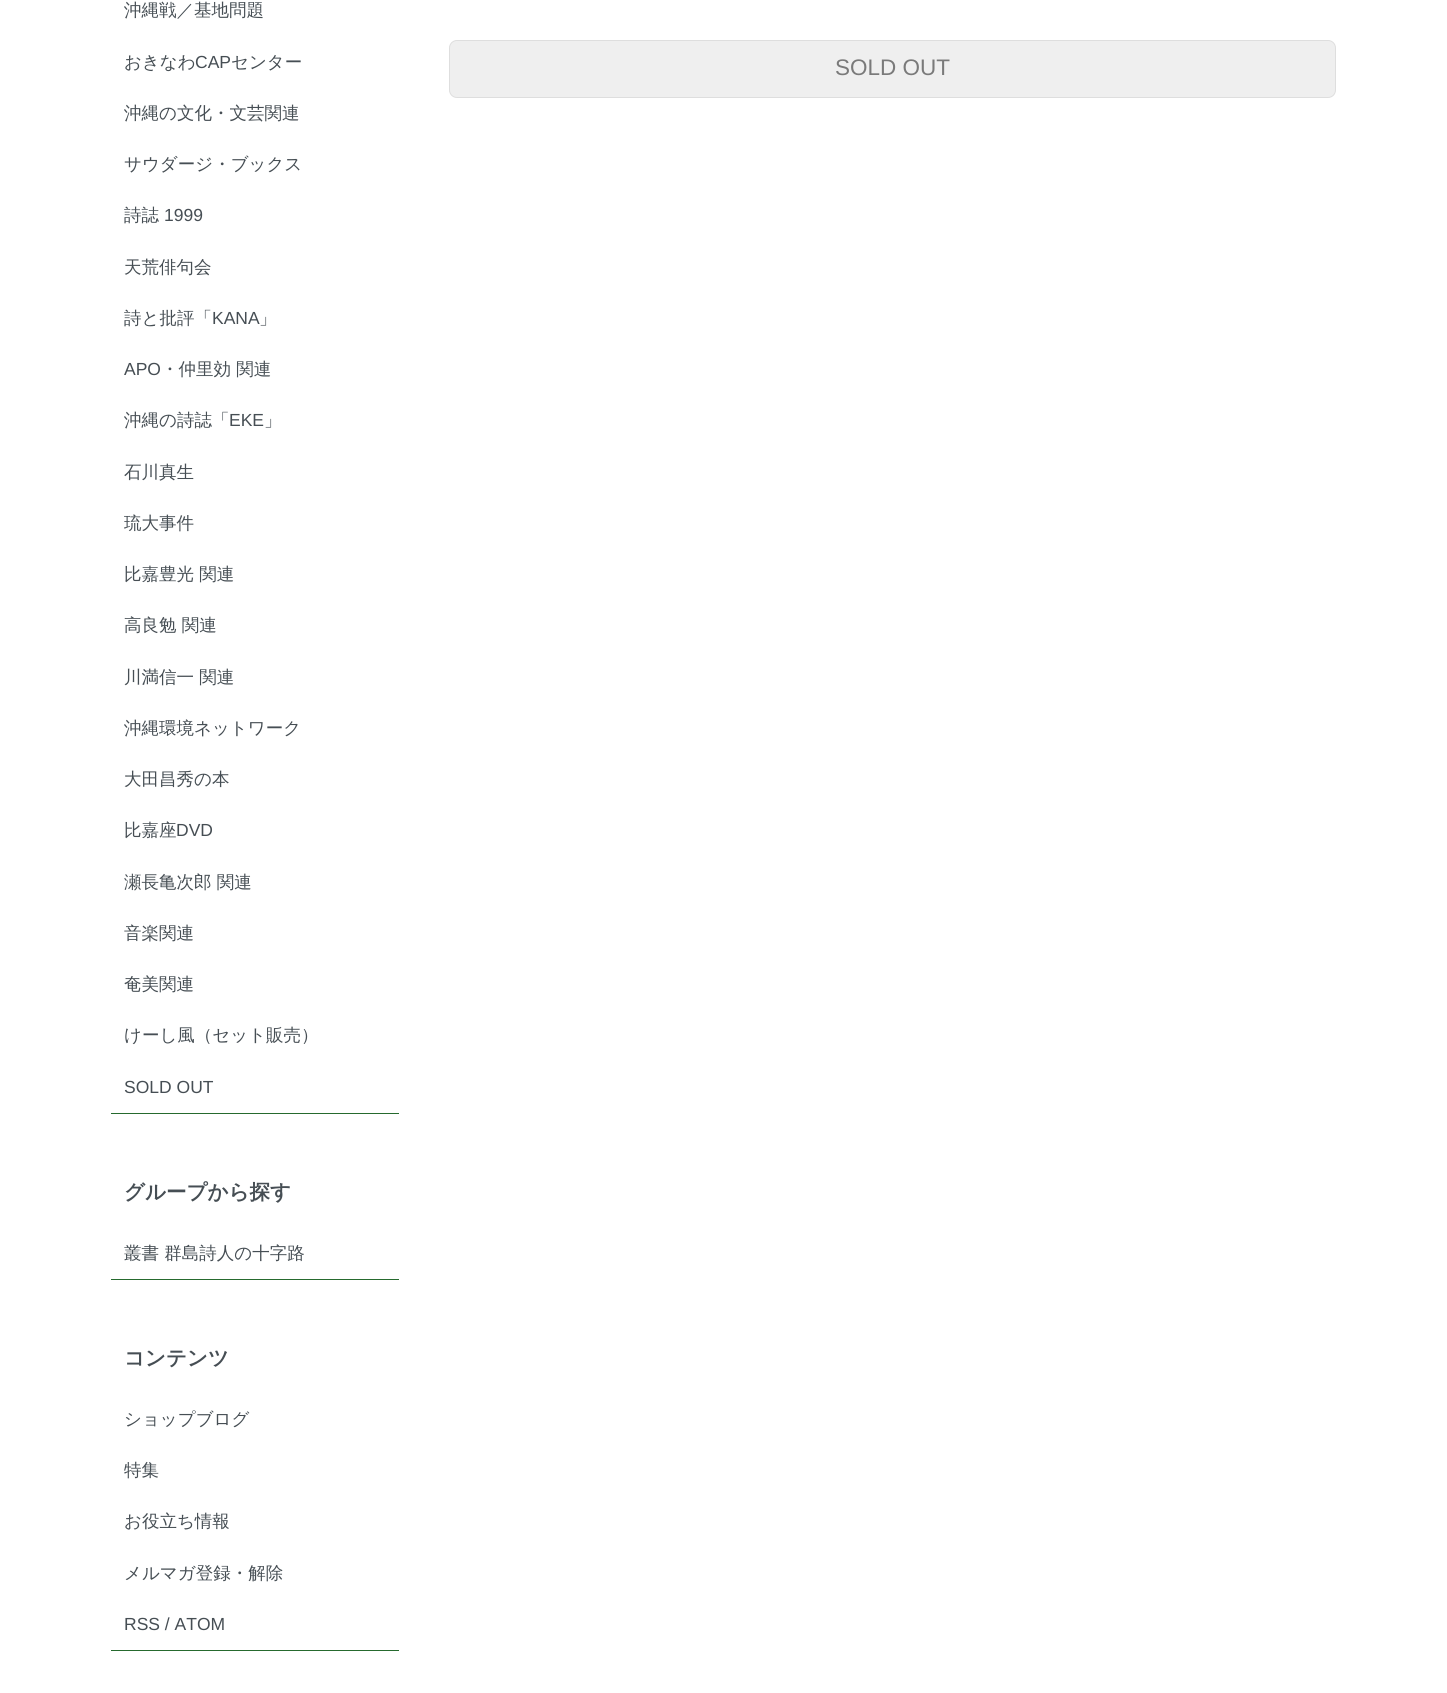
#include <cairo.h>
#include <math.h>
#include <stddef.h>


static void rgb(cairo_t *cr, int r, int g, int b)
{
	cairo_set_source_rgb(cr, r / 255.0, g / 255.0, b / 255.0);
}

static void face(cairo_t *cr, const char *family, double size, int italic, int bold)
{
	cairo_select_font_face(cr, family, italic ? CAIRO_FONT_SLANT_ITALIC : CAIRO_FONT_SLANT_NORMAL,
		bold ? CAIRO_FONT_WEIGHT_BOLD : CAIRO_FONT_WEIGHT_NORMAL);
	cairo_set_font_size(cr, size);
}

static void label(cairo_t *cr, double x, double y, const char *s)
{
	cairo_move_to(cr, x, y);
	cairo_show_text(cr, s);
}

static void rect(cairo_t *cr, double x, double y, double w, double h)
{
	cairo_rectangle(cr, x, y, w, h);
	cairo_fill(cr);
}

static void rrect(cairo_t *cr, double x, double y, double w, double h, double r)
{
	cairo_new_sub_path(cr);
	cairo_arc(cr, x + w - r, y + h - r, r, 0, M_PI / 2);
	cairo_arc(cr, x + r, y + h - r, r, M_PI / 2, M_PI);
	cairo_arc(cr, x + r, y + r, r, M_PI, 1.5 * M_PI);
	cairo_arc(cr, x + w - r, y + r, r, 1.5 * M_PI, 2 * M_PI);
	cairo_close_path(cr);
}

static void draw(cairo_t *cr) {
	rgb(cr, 255, 255, 255);
	cairo_paint(cr);
	rgb(cr, 38, 106, 46);
	rect(cr, 111, 1113, 288, 1);
	face(cr, "WenQuanYi Zen Hei Medium", 17.5, 0, 0);
	rgb(cr, 70, 78, 84);
	label(cr, 124, 16, "沖縄戦／基地問題");
	label(cr, 124, 68, "おきなわ");
	face(cr, "Liberation Sans", 17.5, 0, 0);
	label(cr, 195, 68, "CAP");
	face(cr, "WenQuanYi Zen Hei Medium", 17.5, 0, 0);
	label(cr, 231, 68, "センター");
	label(cr, 124, 119, "沖縄の文化・文芸関連");
	label(cr, 124, 170, "サウダージ・ブックス");
	label(cr, 124, 221, "詩誌");
	face(cr, "Liberation Sans", 17.5, 0, 0);
	label(cr, 164, 221, "1999");
	face(cr, "WenQuanYi Zen Hei Medium", 17.5, 0, 0);
	label(cr, 124, 273, "天荒俳句会");
	label(cr, 124, 324, "詩と批評「");
	face(cr, "Liberation Sans", 17.5, 0, 0);
	label(cr, 212, 324, "KANA");
	face(cr, "WenQuanYi Zen Hei Medium", 17.5, 0, 0);
	label(cr, 259, 324, "」");
	face(cr, "Liberation Sans", 17.5, 0, 0);
	label(cr, 124, 375, "APO");
	face(cr, "WenQuanYi Zen Hei Medium", 17.5, 0, 0);
	label(cr, 161, 375, "・仲里効 関連");
	label(cr, 124, 426, "沖縄の詩誌「");
	face(cr, "Liberation Sans", 17.5, 0, 0);
	label(cr, 229, 426, "EKE");
	face(cr, "WenQuanYi Zen Hei Medium", 17.5, 0, 0);
	label(cr, 264, 426, "」");
	label(cr, 124, 478, "石川真生");
	label(cr, 124, 529, "琉大事件");
	label(cr, 124, 580, "比嘉豊光 関連");
	label(cr, 124, 631, "高良勉 関連");
	label(cr, 124, 683, "川満信一 関連");
	label(cr, 124, 734, "沖縄環境ネットワーク");
	label(cr, 124, 785, "大田昌秀の本");
	label(cr, 124, 836, "比嘉座");
	face(cr, "Liberation Sans", 17.5, 0, 0);
	label(cr, 176, 836, "DVD");
	face(cr, "WenQuanYi Zen Hei Medium", 17.5, 0, 0);
	label(cr, 124, 888, "瀬長亀次郎 関連");
	label(cr, 124, 939, "音楽関連");
	label(cr, 124, 990, "奄美関連");
	label(cr, 124, 1041, "けーし風（セット販売）");
	face(cr, "Liberation Sans", 17.5, 0, 0);
	label(cr, 124, 1093, "SOLD OUT");
	face(cr, "WenQuanYi Zen Hei", 20.5, 0, 1);
	label(cr, 124, 1199, "グループから探す");
	rgb(cr, 38, 106, 46);
	rect(cr, 111, 1279, 288, 1);
	face(cr, "WenQuanYi Zen Hei Medium", 17.5, 0, 0);
	rgb(cr, 70, 78, 84);
	label(cr, 124, 1259, "叢書 群島詩人の十字路");
	face(cr, "WenQuanYi Zen Hei", 20.5, 0, 1);
	label(cr, 124, 1365, "コンテンツ");
	rgb(cr, 38, 106, 46);
	rect(cr, 111, 1650, 288, 1);
	face(cr, "WenQuanYi Zen Hei Medium", 17.5, 0, 0);
	rgb(cr, 70, 78, 84);
	label(cr, 124, 1425, "ショップブログ");
	label(cr, 124, 1476, "特集");
	label(cr, 124, 1527, "お役立ち情報");
	label(cr, 124, 1579, "メルマガ登録・解除");
	face(cr, "Liberation Sans", 17.5, 0, 0);
	label(cr, 124, 1630, "RSS / ATOM");
	rgb(cr, 239, 239, 239);
	rrect(cr, 449.5, 40.5, 886, 57, 7.5);
	cairo_fill_preserve(cr);
	rgb(cr, 222, 222, 222);
	cairo_set_line_width(cr, 1);
	cairo_stroke(cr);
	face(cr, "Liberation Sans", 22.5, 0, 0);
	rgb(cr, 122, 122, 122);
	label(cr, 835, 75, "SOLD OUT");
}

int main(void) {
	cairo_surface_t *surface = cairo_image_surface_create(CAIRO_FORMAT_RGB24, 1447, 1693);
	cairo_t *cr = cairo_create(surface);
	cairo_font_options_t *options = cairo_font_options_create();
	cairo_font_options_set_hint_metrics(options, CAIRO_HINT_METRICS_OFF);
	cairo_font_options_set_hint_style(options, CAIRO_HINT_STYLE_NONE);
	cairo_set_font_options(cr, options);
	cairo_set_miter_limit(cr, 4);
	draw(cr);
	cairo_surface_write_to_png(surface, "render.png");
	cairo_font_options_destroy(options);
	cairo_destroy(cr);
	cairo_surface_destroy(surface);
	return 0;
}
